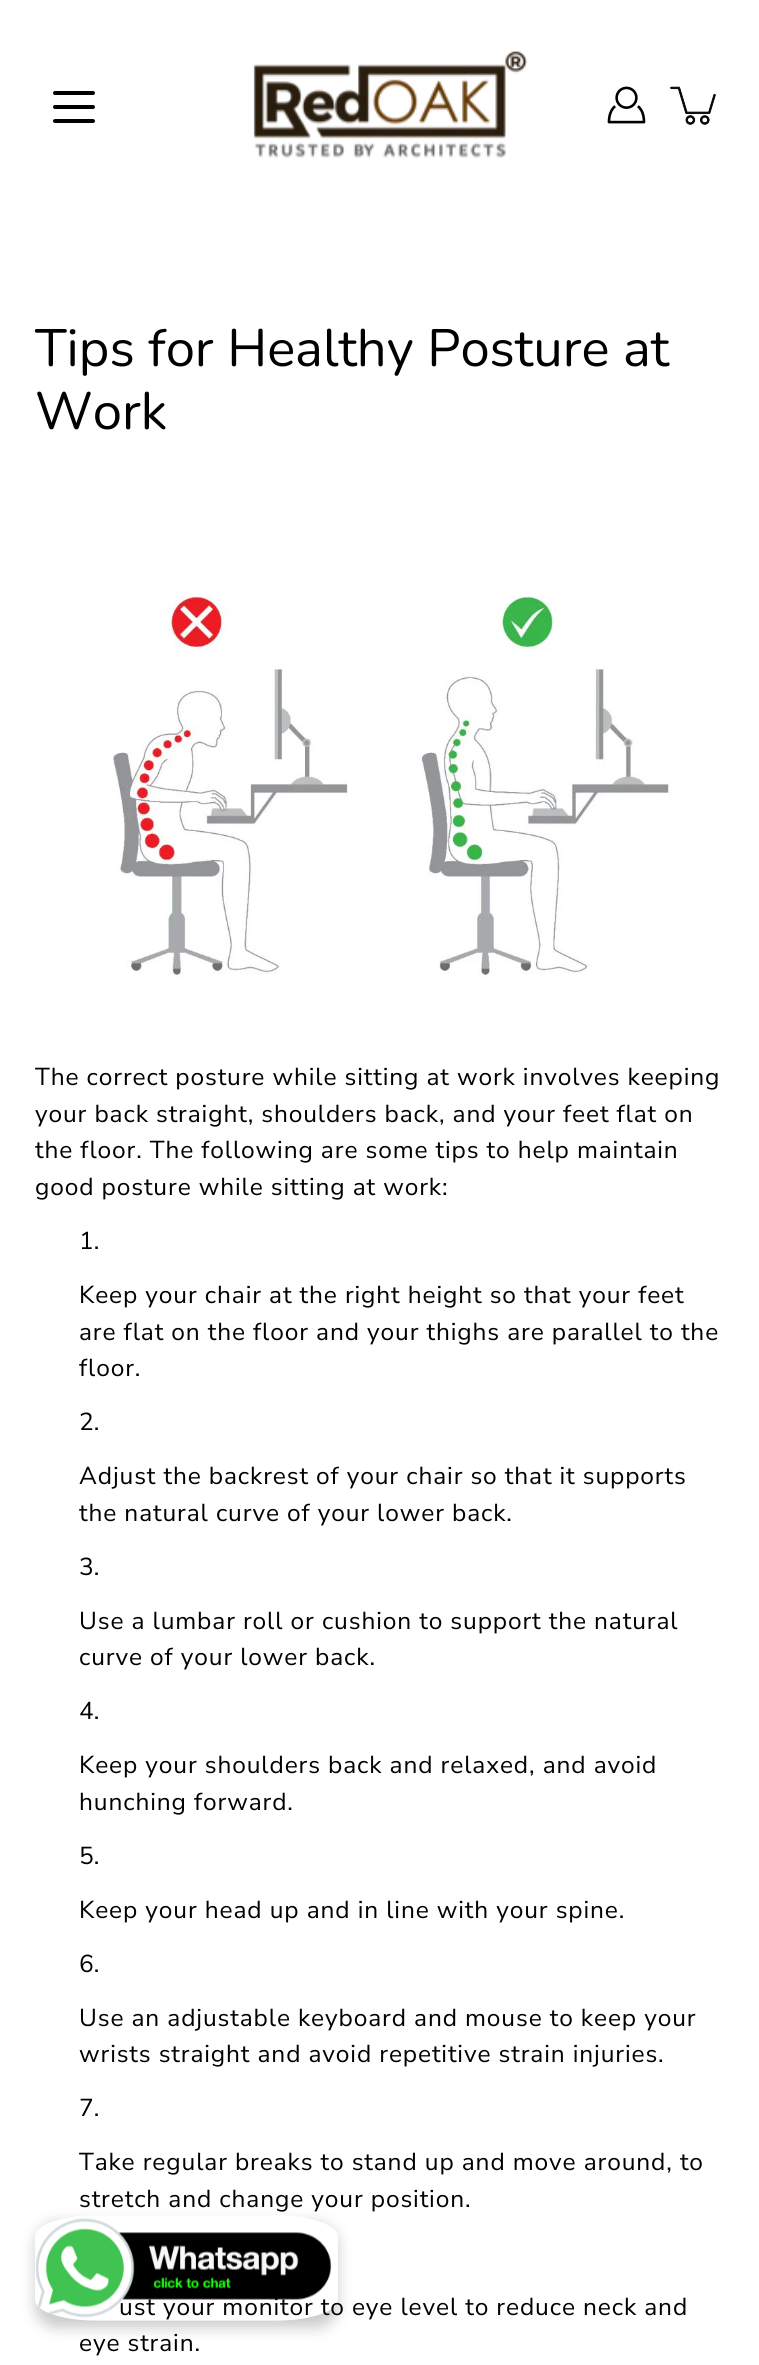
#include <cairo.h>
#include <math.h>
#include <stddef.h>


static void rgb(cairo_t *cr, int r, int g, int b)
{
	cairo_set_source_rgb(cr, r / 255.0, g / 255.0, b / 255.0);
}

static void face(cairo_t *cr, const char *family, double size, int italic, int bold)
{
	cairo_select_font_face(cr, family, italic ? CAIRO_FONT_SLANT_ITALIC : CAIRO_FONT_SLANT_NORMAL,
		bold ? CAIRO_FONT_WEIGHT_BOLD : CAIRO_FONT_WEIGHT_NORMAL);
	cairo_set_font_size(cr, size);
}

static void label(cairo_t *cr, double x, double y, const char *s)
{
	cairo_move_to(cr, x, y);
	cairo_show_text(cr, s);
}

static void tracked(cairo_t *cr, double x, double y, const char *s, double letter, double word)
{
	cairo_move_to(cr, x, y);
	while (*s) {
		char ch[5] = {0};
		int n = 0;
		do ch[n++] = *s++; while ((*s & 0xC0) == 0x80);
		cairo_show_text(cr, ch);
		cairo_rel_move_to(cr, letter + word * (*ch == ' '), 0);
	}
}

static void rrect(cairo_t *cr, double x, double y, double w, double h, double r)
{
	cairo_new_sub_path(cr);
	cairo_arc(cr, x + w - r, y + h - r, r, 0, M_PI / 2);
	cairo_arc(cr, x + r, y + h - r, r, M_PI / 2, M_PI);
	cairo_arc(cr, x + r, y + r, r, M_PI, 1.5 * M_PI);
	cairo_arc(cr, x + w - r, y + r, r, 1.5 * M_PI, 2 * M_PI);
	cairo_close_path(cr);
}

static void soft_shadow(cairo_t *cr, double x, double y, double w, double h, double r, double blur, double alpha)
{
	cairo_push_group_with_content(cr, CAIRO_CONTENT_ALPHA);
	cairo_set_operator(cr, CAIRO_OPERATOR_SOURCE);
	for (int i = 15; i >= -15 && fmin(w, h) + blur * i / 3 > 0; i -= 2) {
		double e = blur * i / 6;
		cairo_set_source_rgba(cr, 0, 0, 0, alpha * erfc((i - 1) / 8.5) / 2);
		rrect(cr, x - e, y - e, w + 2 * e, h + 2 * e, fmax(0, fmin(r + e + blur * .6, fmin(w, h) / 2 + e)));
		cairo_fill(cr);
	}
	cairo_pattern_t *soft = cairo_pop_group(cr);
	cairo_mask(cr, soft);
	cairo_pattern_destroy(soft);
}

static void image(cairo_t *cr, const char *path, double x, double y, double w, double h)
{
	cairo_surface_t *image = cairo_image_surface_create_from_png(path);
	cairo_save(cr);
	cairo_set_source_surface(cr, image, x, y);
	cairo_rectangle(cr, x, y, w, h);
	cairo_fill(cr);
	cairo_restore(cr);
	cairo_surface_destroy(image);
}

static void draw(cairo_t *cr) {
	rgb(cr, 255, 255, 255);
	cairo_paint(cr);
	image(cr, "image0.png", 253, 51, 275, 107);
	rgb(cr, 0, 0, 0);
	rrect(cr, 53, 105, 42, 4, 2);
	cairo_fill(cr);
	rrect(cr, 53, 91, 42, 4, 2);
	cairo_fill(cr);
	rrect(cr, 53, 119, 42, 4, 2);
	cairo_fill(cr);
	image(cr, "image1.png", 607, 86, 39, 38);
	image(cr, "image2.png", 670, 86, 46, 39);
	face(cr, "Nunito", 52.5, 0, 0);
	label(cr, 35, 366, "Tips for Healthy Posture at");
	label(cr, 35, 429, "Work");
	image(cr, "image3.png", 113, 596, 558, 383);
	face(cr, "Nunito Sans", 24.5, 0, 0);
	tracked(cr, 35, 1085, "The correct posture while sitting at work involves keeping", 0.88, 0);
	tracked(cr, 35, 1122, "your back straight, shoulders back, and your feet flat on", 0.88, 0);
	tracked(cr, 35, 1158, "the floor. The following are some tips to help maintain", 0.88, 0);
	tracked(cr, 35, 1195, "good posture while sitting at work:", 0.88, 0);
	label(cr, 79, 1249, "1.");
	tracked(cr, 79, 1303, "Keep your chair at the right height so that your feet", 0.88, 0);
	tracked(cr, 79, 1340, "are flat on the floor and your thighs are parallel to the", 0.88, 0);
	tracked(cr, 79, 1376, "floor.", 0.88, 0);
	label(cr, 79, 1430, "2.");
	tracked(cr, 79, 1484, "Adjust the backrest of your chair so that it supports", 0.88, 0);
	tracked(cr, 79, 1521, "the natural curve of your lower back.", 0.88, 0);
	label(cr, 79, 1575, "3.");
	tracked(cr, 79, 1629, "Use a lumbar roll or cushion to support the natural", 0.88, 0);
	tracked(cr, 79, 1665, "curve of your lower back.", 0.88, 0);
	label(cr, 79, 1719, "4.");
	tracked(cr, 79, 1773, "Keep your shoulders back and relaxed, and avoid", 0.88, 0);
	tracked(cr, 79, 1810, "hunching forward.", 0.88, 0);
	label(cr, 79, 1864, "5.");
	tracked(cr, 79, 1918, "Keep your head up and in line with your spine.", 0.88, 0);
	label(cr, 79, 1972, "6.");
	tracked(cr, 79, 2026, "Use an adjustable keyboard and mouse to keep your", 0.88, 0);
	tracked(cr, 79, 2062, "wrists straight and avoid repetitive strain injuries.", 0.88, 0);
	label(cr, 79, 2116, "7.");
	tracked(cr, 79, 2170, "Take regular breaks to stand up and move around, to", 0.88, 0);
	tracked(cr, 79, 2207, "stretch and change your position.", 0.88, 0);
	tracked(cr, 119, 2315, "ust your monitor to eye level to reduce neck and", 0.88, 0);
	tracked(cr, 79, 2351, "eye strain.", 0.88, 0);
	cairo_save(cr);
	cairo_set_fill_rule(cr, CAIRO_FILL_RULE_EVEN_ODD);
	cairo_new_path(cr);
	cairo_move_to(cr, 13, 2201);
	cairo_line_to(cr, 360, 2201);
	cairo_line_to(cr, 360, 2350);
	cairo_line_to(cr, 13, 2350);
	cairo_close_path(cr);
	cairo_move_to(cr, 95.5, 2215.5);
	cairo_line_to(cr, 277, 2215.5);
	cairo_curve_to(cr, 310.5, 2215.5, 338, 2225, 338, 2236.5);
	cairo_line_to(cr, 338, 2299.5);
	cairo_curve_to(cr, 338, 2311, 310.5, 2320.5, 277, 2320.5);
	cairo_line_to(cr, 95.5, 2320.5);
	cairo_curve_to(cr, 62, 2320.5, 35, 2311, 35, 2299.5);
	cairo_line_to(cr, 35, 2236.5);
	cairo_curve_to(cr, 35, 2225, 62, 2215.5, 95.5, 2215.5);
	cairo_close_path(cr);
	cairo_clip(cr);
	rgb(cr, 0, 0, 0);
	soft_shadow(cr, 35, 2223, 303, 105, 21, 7, 0.2);
	cairo_restore(cr);
	image(cr, "image4.png", 35, 2218, 297, 100);
}

int main(void) {
	cairo_surface_t *surface = cairo_image_surface_create(CAIRO_FORMAT_RGB24, 759, 2365);
	cairo_t *cr = cairo_create(surface);
	cairo_font_options_t *options = cairo_font_options_create();
	cairo_font_options_set_hint_metrics(options, CAIRO_HINT_METRICS_OFF);
	cairo_font_options_set_hint_style(options, CAIRO_HINT_STYLE_NONE);
	cairo_set_font_options(cr, options);
	cairo_set_miter_limit(cr, 4);
	draw(cr);
	cairo_surface_write_to_png(surface, "render.png");
	cairo_font_options_destroy(options);
	cairo_destroy(cr);
	cairo_surface_destroy(surface);
	return 0;
}
